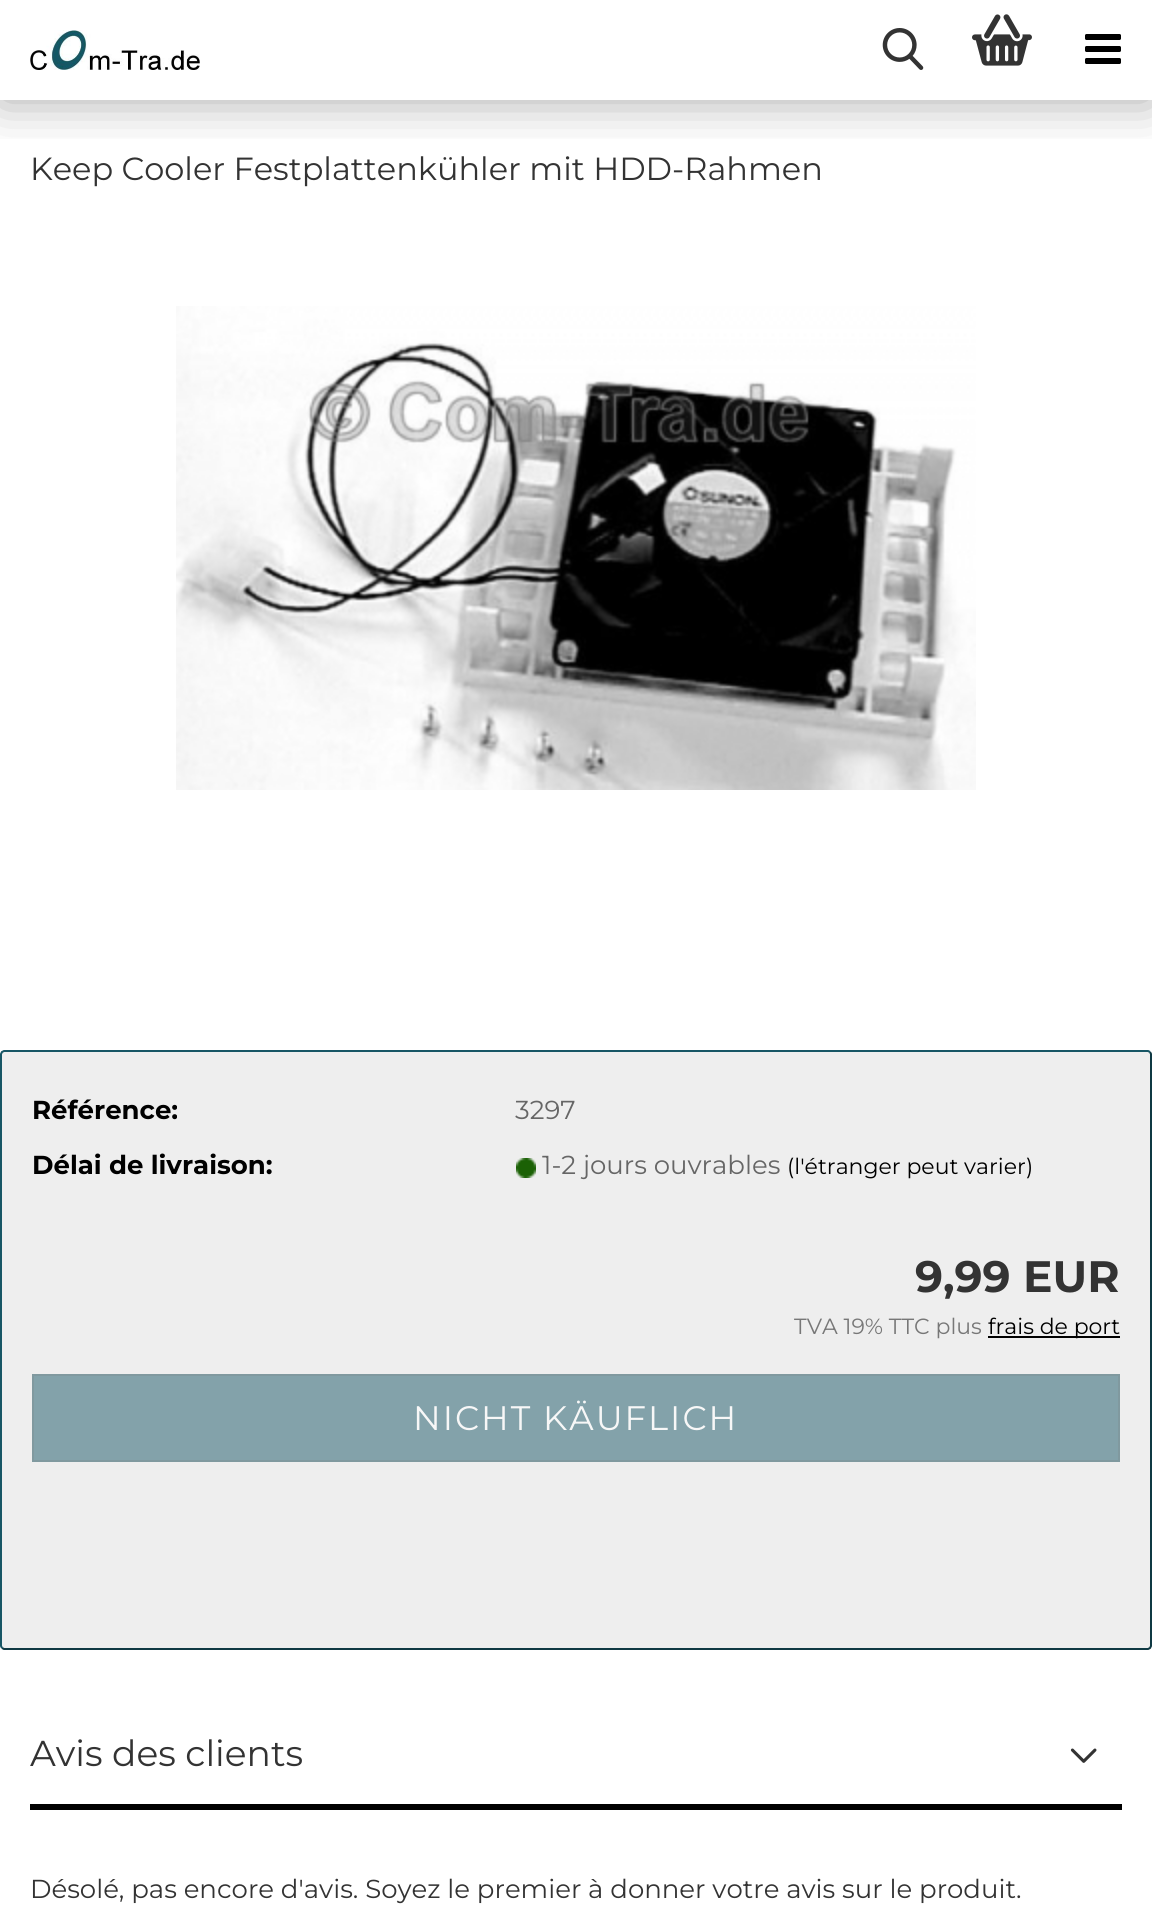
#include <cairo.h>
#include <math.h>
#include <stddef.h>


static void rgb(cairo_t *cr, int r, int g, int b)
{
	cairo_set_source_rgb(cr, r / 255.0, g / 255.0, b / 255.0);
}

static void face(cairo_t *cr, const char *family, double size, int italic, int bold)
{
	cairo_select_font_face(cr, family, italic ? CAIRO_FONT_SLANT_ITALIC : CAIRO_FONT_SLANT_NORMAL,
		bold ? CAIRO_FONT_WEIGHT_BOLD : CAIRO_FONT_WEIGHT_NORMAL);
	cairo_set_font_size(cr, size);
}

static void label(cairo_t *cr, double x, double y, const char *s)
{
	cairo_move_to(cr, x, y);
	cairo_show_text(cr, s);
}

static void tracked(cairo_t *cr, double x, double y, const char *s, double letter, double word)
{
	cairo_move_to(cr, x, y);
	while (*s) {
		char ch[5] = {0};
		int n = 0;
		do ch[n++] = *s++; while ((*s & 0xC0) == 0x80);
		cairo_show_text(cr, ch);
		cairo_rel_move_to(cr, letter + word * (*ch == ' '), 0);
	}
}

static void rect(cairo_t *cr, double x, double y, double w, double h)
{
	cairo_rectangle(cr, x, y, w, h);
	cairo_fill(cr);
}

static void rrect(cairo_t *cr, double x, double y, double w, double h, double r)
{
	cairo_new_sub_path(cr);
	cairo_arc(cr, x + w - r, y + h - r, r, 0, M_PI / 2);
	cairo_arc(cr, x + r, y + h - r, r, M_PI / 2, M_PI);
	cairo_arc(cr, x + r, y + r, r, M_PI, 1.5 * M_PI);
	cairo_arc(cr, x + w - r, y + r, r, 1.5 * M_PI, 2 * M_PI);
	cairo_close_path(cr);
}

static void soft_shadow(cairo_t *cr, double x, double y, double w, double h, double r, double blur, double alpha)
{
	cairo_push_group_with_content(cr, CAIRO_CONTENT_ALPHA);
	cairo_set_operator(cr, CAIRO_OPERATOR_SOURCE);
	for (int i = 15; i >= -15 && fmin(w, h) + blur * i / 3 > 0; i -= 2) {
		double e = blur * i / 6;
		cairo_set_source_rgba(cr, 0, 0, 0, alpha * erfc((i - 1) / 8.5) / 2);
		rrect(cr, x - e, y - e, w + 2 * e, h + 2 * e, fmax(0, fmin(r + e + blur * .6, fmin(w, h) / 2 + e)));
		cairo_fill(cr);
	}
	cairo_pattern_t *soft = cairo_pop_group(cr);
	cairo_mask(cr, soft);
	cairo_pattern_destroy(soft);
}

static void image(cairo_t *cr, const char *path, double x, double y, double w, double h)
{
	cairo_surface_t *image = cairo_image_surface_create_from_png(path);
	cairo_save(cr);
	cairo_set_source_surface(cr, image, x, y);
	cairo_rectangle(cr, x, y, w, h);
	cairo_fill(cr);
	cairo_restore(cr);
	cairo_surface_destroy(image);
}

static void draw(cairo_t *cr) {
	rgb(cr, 255, 255, 255);
	cairo_paint(cr);
	cairo_save(cr);
	cairo_rectangle(cr, 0, 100, 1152, 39);
	cairo_clip(cr);
	rgb(cr, 0, 0, 0);
	soft_shadow(cr, 0, 0, 1152, 100, 0, 25, 0.35);
	cairo_restore(cr);
	image(cr, "image0.png", 30, 30, 170, 40);
	image(cr, "image1.png", 882, 28, 42, 42);
	image(cr, "image2.png", 972, 14, 60, 52);
	image(cr, "image3.png", 1085, 34, 36, 30);
	face(cr, "Montserrat Thin", 32, 0, 0);
	rgb(cr, 51, 51, 51);
	label(cr, 30, 180, "Keep Cooler Festplattenkühler mit HDD-Rahmen");
	image(cr, "image4.png", 176, 306, 800, 484);
	rgb(cr, 238, 238, 238);
	rrect(cr, 0, 1050, 1152, 600, 4);
	cairo_fill(cr);
	cairo_new_path(cr);
	cairo_move_to(cr, 1150, 1052);
	cairo_line_to(cr, 1151, 1054);
	cairo_line_to(cr, 1151, 1646);
	cairo_line_to(cr, 1150, 1648);
	cairo_line_to(cr, 1148, 1649);
	cairo_line_to(cr, 4, 1649);
	cairo_line_to(cr, 2, 1648);
	rgb(cr, 15, 57, 67);
	cairo_stroke(cr);
	cairo_new_path(cr);
	cairo_move_to(cr, 2, 1648);
	cairo_line_to(cr, 1, 1646);
	cairo_line_to(cr, 1, 1054);
	cairo_line_to(cr, 2, 1052);
	cairo_line_to(cr, 4, 1051);
	cairo_line_to(cr, 1148, 1051);
	cairo_line_to(cr, 1150, 1052);
	rgb(cr, 23, 86, 101);
	cairo_stroke(cr);
	face(cr, "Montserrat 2 Thin", 26, 0, 0);
	rgb(cr, 0, 0, 0);
	label(cr, 32, 1119, "Référence:");
	face(cr, "Montserrat Thin", 26, 0, 0);
	rgb(cr, 102, 102, 102);
	label(cr, 515, 1119, "3297");
	face(cr, "Montserrat 2 Thin", 26, 0, 0);
	rgb(cr, 0, 0, 0);
	label(cr, 32, 1174, "Délai de livraison:");
	image(cr, "image5.png", 516, 1158, 20, 20);
	face(cr, "Montserrat Thin", 26, 0, 0);
	rgb(cr, 102, 102, 102);
	label(cr, 542, 1174, "1-2 jours ouvrables");
	face(cr, "Montserrat Thin", 22, 0, 0);
	rgb(cr, 0, 0, 0);
	label(cr, 787, 1174, "(l'étranger peut varier)");
	face(cr, "Montserrat 2 Thin", 44, 0, 0);
	rgb(cr, 51, 51, 51);
	label(cr, 915, 1292, "9,99 EUR");
	face(cr, "Montserrat Thin", 22, 0, 0);
	rgb(cr, 119, 119, 119);
	label(cr, 794, 1334, "TVA 19% TTC plus");
	rgb(cr, 0, 0, 0);
	rect(cr, 988, 1336, 132, 2);
	label(cr, 988, 1334, "frais de port");
	rgb(cr, 131, 162, 170);
	cairo_rectangle(cr, 33, 1375, 1086, 86);
	cairo_fill_preserve(cr);
	rgb(cr, 128, 153, 159);
	cairo_stroke(cr);
	face(cr, "Montserrat Thin", 34, 0, 0);
	rgb(cr, 247, 247, 247);
	tracked(cr, 413, 1430, "NICHT KÄUFLICH", 2, 0);
	rgb(cr, 0, 0, 0);
	rect(cr, 30, 1804, 1092, 6);
	face(cr, "Montserrat Thin", 36, 0, 0);
	rgb(cr, 51, 51, 51);
	label(cr, 30, 1766, "Avis des clients");
	image(cr, "image6.png", 1070, 1748, 27, 15);
	face(cr, "Montserrat Thin", 26, 0, 0);
	label(cr, 30, 1898, "Désolé, pas encore d'avis. Soyez le premier à donner votre avis sur le produit.");
}

int main(void) {
	cairo_surface_t *surface = cairo_image_surface_create(CAIRO_FORMAT_RGB24, 1152, 1905);
	cairo_t *cr = cairo_create(surface);
	cairo_font_options_t *options = cairo_font_options_create();
	cairo_font_options_set_hint_metrics(options, CAIRO_HINT_METRICS_OFF);
	cairo_font_options_set_hint_style(options, CAIRO_HINT_STYLE_NONE);
	cairo_set_font_options(cr, options);
	cairo_set_miter_limit(cr, 4);
	draw(cr);
	cairo_surface_write_to_png(surface, "render.png");
	cairo_font_options_destroy(options);
	cairo_destroy(cr);
	cairo_surface_destroy(surface);
	return 0;
}
